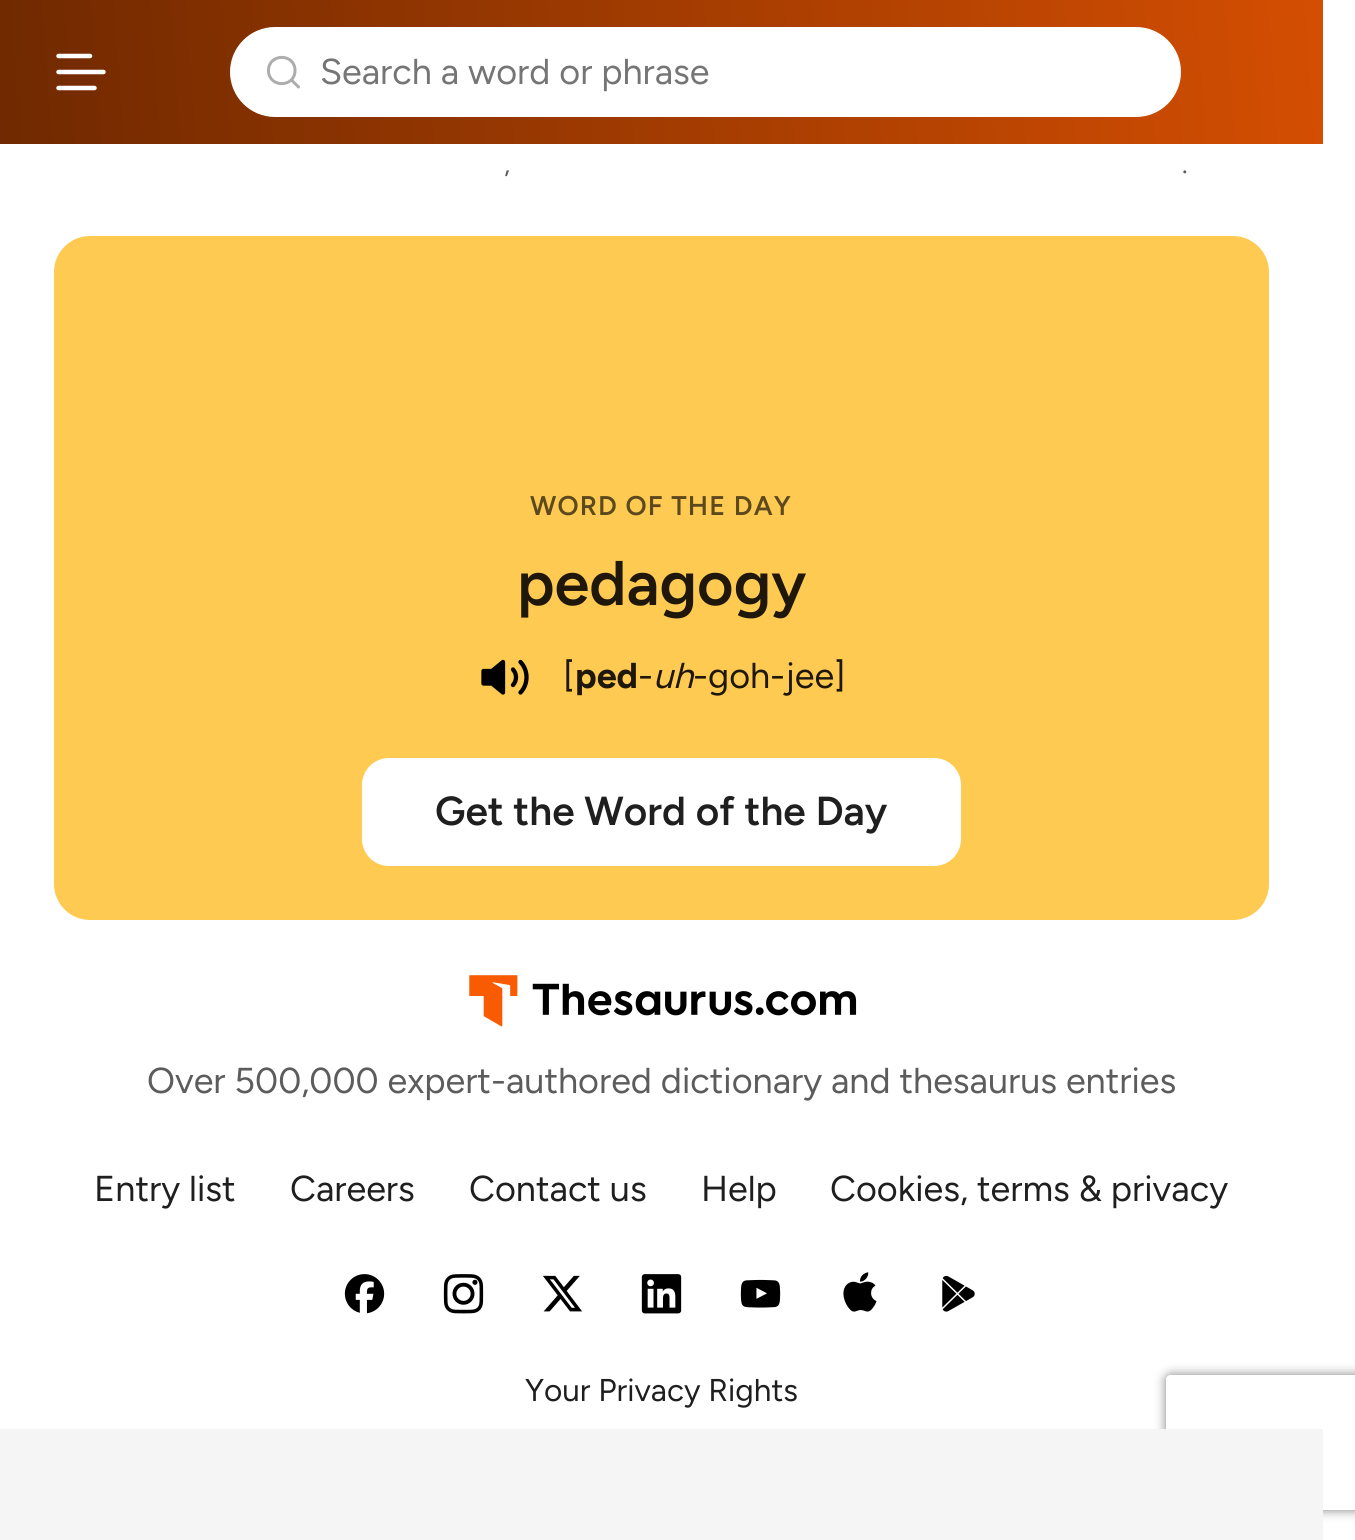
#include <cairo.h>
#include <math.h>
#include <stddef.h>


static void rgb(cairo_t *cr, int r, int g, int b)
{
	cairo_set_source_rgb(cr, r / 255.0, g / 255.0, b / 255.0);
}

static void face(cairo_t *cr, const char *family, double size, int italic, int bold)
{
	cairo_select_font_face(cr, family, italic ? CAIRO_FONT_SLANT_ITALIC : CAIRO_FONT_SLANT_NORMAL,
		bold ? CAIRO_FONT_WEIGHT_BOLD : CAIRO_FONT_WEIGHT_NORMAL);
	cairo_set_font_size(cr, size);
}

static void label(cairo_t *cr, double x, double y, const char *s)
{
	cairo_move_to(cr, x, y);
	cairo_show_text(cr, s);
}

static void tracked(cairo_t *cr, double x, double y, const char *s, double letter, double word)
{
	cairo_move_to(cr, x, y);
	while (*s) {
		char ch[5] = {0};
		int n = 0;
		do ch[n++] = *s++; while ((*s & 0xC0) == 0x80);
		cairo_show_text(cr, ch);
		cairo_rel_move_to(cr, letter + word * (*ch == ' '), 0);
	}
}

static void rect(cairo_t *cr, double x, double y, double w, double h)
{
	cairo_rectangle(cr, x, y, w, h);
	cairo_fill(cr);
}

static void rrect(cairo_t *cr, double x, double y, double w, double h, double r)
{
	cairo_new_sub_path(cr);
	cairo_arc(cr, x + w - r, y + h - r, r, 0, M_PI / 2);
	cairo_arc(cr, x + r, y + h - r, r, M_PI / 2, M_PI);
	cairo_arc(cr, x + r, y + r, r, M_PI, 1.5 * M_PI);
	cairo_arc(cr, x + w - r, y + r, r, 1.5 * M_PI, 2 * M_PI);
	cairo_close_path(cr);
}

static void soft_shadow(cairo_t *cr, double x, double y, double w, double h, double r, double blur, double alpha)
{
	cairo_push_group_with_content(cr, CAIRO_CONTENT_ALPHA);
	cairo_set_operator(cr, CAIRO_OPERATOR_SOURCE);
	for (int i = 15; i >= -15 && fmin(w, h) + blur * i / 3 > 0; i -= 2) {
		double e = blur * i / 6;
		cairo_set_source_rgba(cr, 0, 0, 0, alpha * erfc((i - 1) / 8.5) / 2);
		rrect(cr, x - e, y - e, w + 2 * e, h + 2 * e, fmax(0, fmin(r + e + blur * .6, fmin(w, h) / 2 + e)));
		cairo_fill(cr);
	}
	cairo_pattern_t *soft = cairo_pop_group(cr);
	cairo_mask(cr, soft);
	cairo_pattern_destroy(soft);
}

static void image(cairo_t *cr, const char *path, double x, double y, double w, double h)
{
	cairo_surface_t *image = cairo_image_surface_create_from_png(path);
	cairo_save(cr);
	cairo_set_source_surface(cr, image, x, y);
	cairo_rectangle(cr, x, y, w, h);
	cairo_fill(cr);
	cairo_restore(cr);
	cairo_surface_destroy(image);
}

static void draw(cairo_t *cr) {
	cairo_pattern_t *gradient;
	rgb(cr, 255, 255, 255);
	cairo_paint(cr);
	gradient = cairo_pattern_create_linear(-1.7, 121, 1325, 23);
	cairo_pattern_add_color_stop_rgba(gradient, 0, 0.439, 0.161, 0, 1);
	cairo_pattern_add_color_stop_rgba(gradient, 1, 0.831, 0.306, 0.008, 1);
	cairo_set_source(cr, gradient);
	cairo_pattern_destroy(gradient);
	rect(cr, 0, 0, 1323, 144);
	cairo_new_path(cr);
	cairo_move_to(cr, 58.5, 56);
	cairo_line_to(cr, 90, 56);
	cairo_move_to(cr, 58.5, 72);
	cairo_line_to(cr, 103.5, 72);
	cairo_move_to(cr, 58.5, 88);
	cairo_line_to(cr, 94.5, 88);
	rgb(cr, 255, 255, 255);
	cairo_set_line_width(cr, 4.5);
	cairo_set_line_cap(cr, CAIRO_LINE_CAP_ROUND);
	cairo_stroke(cr);
	rrect(cr, 230, 27, 951, 90, 45);
	cairo_fill(cr);
	cairo_new_path(cr);
	cairo_move_to(cr, 298.5, 87);
	cairo_line_to(cr, 291.5, 80);
	cairo_move_to(cr, 295, 70.5);
	cairo_curve_to(cr, 295, 88, 268.5, 88, 268.5, 70.5);
	cairo_curve_to(cr, 268.5, 53, 295, 53, 295, 70.5);
	cairo_close_path(cr);
	rgb(cr, 173, 173, 173);
	cairo_set_line_width(cr, 3);
	cairo_set_line_join(cr, CAIRO_LINE_JOIN_ROUND);
	cairo_stroke(cr);
	face(cr, "Figtree", 36, 0, 0);
	rgb(cr, 117, 117, 117);
	label(cr, 320, 84, "Search a word or phrase");
	face(cr, "Figtree", 27, 0, 0);
	rgb(cr, 92, 92, 92);
	label(cr, 504, 173, ",");
	label(cr, 1182, 173, ".");
	rgb(cr, 255, 202, 82);
	rrect(cr, 54, 236, 1215, 684, 36);
	cairo_fill(cr);
	face(cr, "Figtree SemiBold", 27, 0, 0);
	rgb(cr, 92, 73, 30);
	tracked(cr, 530, 515, "WORD OF THE DAY", 1.1, 0);
	face(cr, "Figtree SemiBold", 63, 0, 0);
	rgb(cr, 31, 24, 10);
	label(cr, 517, 605, "pedagogy");
	rgb(cr, 0, 0, 0);
	cairo_new_path(cr);
	cairo_move_to(cr, 503, 662);
	cairo_line_to(cr, 492, 671);
	cairo_line_to(cr, 483.5, 671);
	cairo_line_to(cr, 483.5, 683.5);
	cairo_line_to(cr, 492, 683.5);
	cairo_line_to(cr, 503, 692.5);
	cairo_close_path(cr);
	cairo_fill(cr);
	cairo_new_path(cr);
	cairo_move_to(cr, 520.5, 662);
	cairo_curve_to(cr, 528.5, 670.5, 528.5, 684, 520.5, 692.5);
	cairo_move_to(cr, 513, 669.5);
	cairo_curve_to(cr, 517, 674, 517, 680.5, 513, 685);
	cairo_move_to(cr, 503, 662);
	cairo_line_to(cr, 492, 671);
	cairo_line_to(cr, 483.5, 671);
	cairo_line_to(cr, 483.5, 683.5);
	cairo_line_to(cr, 492, 683.5);
	cairo_line_to(cr, 503, 692.5);
	cairo_close_path(cr);
	cairo_set_line_width(cr, 4.3);
	cairo_stroke(cr);
	face(cr, "Figtree", 36, 0, 0);
	rgb(cr, 31, 24, 10);
	label(cr, 563, 688, "[");
	face(cr, "Figtree", 36, 0, 1);
	label(cr, 575, 688, "ped");
	face(cr, "Figtree", 36, 0, 0);
	label(cr, 638, 688, "-");
	face(cr, "Figtree", 36, 1, 0);
	label(cr, 653, 688, "uh");
	face(cr, "Figtree", 36, 0, 0);
	label(cr, 693, 688, "-goh-jee]");
	rgb(cr, 255, 255, 255);
	rrect(cr, 362, 758, 599, 108, 27);
	cairo_fill(cr);
	face(cr, "Figtree SemiBold", 40.5, 0, 0);
	rgb(cr, 31, 31, 31);
	label(cr, 435, 825, "Get the Word of the Day");
	image(cr, "image0.png", 469, 975, 388, 52);
	face(cr, "Figtree", 36, 0, 0);
	rgb(cr, 92, 92, 92);
	label(cr, 147, 1093, "Over 500,000 expert-authored dictionary and thesaurus entries");
	rgb(cr, 31, 31, 31);
	label(cr, 94, 1201, "Entry list");
	label(cr, 290, 1201, "Careers");
	label(cr, 469, 1201, "Contact us");
	label(cr, 701, 1201, "Help");
	label(cr, 830, 1201, "Cookies, terms & privacy");
	image(cr, "image1.png", 344, 1274, 41, 40);
	image(cr, "image2.png", 443, 1274, 41, 40);
	image(cr, "image3.png", 543, 1275, 39, 37);
	image(cr, "image4.png", 641, 1274, 41, 40);
	image(cr, "image5.png", 740, 1279, 41, 29);
	image(cr, "image6.png", 843, 1272, 34, 40);
	image(cr, "image7.png", 942, 1275, 33, 37);
	face(cr, "Figtree", 31.5, 0, 0);
	label(cr, 525, 1401, "Your Privacy Rights");
	cairo_save(cr);
	cairo_set_fill_rule(cr, CAIRO_FILL_RULE_EVEN_ODD);
	cairo_new_path(cr);
	cairo_move_to(cr, 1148, 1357);
	cairo_line_to(cr, 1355, 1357);
	cairo_line_to(cr, 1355, 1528);
	cairo_line_to(cr, 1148, 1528);
	cairo_close_path(cr);
	cairo_move_to(cr, 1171, 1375);
	cairo_line_to(cr, 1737, 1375);
	cairo_curve_to(cr, 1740, 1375, 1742, 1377, 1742, 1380);
	cairo_line_to(cr, 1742, 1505);
	cairo_curve_to(cr, 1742, 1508, 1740, 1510, 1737, 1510);
	cairo_line_to(cr, 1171, 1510);
	cairo_curve_to(cr, 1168, 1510, 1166, 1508, 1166, 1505);
	cairo_line_to(cr, 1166, 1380);
	cairo_curve_to(cr, 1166, 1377, 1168, 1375, 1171, 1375);
	cairo_close_path(cr);
	cairo_clip(cr);
	rgb(cr, 128, 128, 128);
	soft_shadow(cr, 1166, 1375, 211, 135, 5, 5.5, 1);
	cairo_restore(cr);
	rgb(cr, 245, 245, 245);
	rect(cr, 0, 1429, 1323, 111);
}

int main(void) {
	cairo_surface_t *surface = cairo_image_surface_create(CAIRO_FORMAT_RGB24, 1355, 1540);
	cairo_t *cr = cairo_create(surface);
	cairo_font_options_t *options = cairo_font_options_create();
	cairo_font_options_set_hint_metrics(options, CAIRO_HINT_METRICS_OFF);
	cairo_font_options_set_hint_style(options, CAIRO_HINT_STYLE_NONE);
	cairo_set_font_options(cr, options);
	cairo_set_miter_limit(cr, 4);
	draw(cr);
	cairo_surface_write_to_png(surface, "render.png");
	cairo_font_options_destroy(options);
	cairo_destroy(cr);
	cairo_surface_destroy(surface);
	return 0;
}
